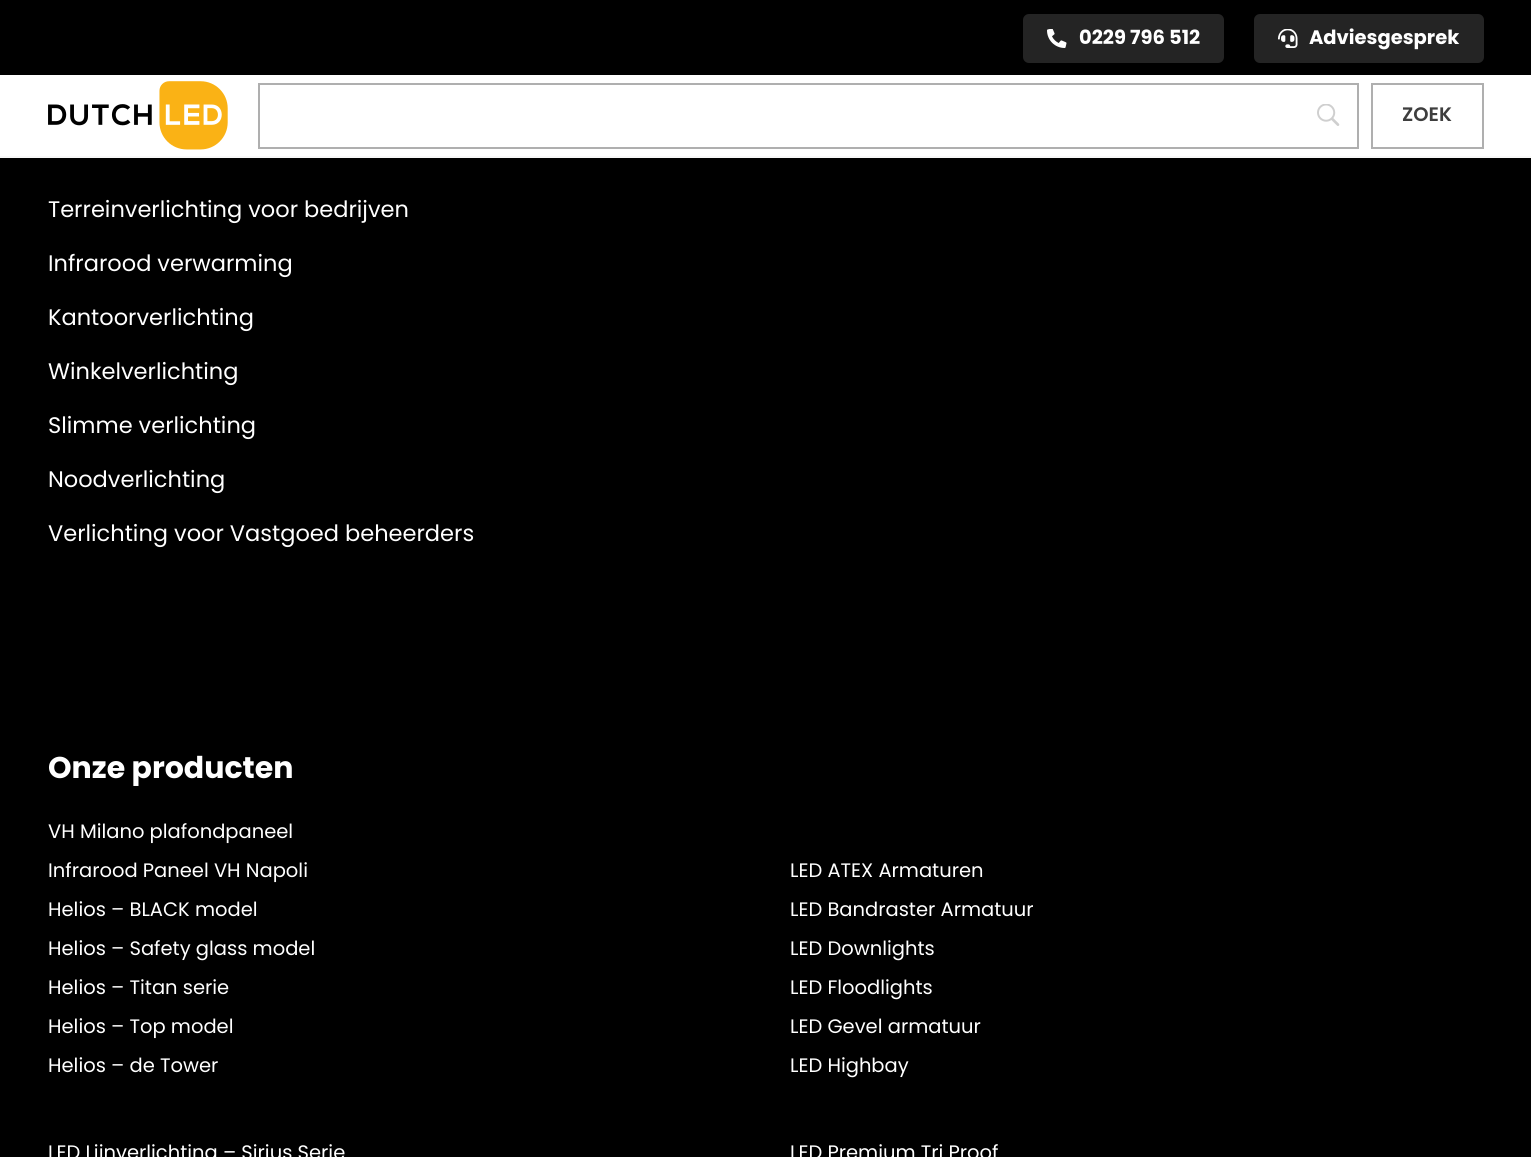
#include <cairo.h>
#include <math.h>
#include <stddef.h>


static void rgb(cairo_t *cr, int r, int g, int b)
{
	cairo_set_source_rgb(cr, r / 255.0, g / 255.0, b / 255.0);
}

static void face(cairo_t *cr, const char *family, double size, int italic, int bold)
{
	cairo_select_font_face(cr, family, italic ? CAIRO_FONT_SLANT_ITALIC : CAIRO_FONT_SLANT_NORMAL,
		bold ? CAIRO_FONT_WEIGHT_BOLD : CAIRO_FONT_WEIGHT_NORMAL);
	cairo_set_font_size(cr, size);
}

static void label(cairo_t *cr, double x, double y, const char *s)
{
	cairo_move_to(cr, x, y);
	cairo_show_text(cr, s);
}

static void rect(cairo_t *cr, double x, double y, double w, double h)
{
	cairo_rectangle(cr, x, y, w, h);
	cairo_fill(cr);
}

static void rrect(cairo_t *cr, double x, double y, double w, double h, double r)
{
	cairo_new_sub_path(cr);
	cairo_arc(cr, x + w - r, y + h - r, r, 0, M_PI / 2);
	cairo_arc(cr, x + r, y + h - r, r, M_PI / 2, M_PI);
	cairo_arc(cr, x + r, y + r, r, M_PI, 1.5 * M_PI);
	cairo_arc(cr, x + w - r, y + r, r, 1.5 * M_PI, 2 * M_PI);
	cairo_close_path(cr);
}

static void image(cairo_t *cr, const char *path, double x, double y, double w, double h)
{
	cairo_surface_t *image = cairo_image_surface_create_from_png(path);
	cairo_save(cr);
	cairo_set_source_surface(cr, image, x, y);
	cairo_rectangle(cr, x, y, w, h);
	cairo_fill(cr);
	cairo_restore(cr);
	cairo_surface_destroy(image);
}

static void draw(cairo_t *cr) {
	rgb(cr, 0, 0, 0);
	cairo_paint(cr);
	rgb(cr, 36, 36, 36);
	rrect(cr, 1023, 14, 201, 49, 6);
	cairo_fill(cr);
	image(cr, "image0.png", 1047, 29, 20, 19);
	face(cr, "Poppins", 19.5, 0, 1);
	rgb(cr, 255, 255, 255);
	label(cr, 1079, 44, "0229 796 512");
	rgb(cr, 36, 36, 36);
	rrect(cr, 1254, 14, 230, 49, 6);
	cairo_fill(cr);
	image(cr, "image1.png", 1278, 29, 20, 19);
	rgb(cr, 255, 255, 255);
	label(cr, 1309, 44, "Adviesgesprek");
	rect(cr, 0, 75, 1531, 81);
	rgb(cr, 248, 248, 248);
	rect(cr, 0, 156, 1531, 2);
	image(cr, "image2.png", 48, 81, 180, 69);
	image(cr, "image3.png", 1317, 104, 23, 22);
	cairo_rectangle(cr, 259, 84, 1099, 64);
	rgb(cr, 175, 175, 175);
	cairo_stroke(cr);
	cairo_rectangle(cr, 1372, 84, 111, 64);
	cairo_stroke(cr);
	face(cr, "Poppins SemiBold", 19.5, 0, 0);
	rgb(cr, 62, 62, 62);
	label(cr, 1402, 121, "ZOEK");
	face(cr, "Poppins", 22.5, 0, 0);
	rgb(cr, 255, 255, 255);
	label(cr, 48, 217, "Terreinverlichting voor bedrijven");
	label(cr, 48, 271, "Infrarood verwarming");
	label(cr, 48, 325, "Kantoorverlichting");
	label(cr, 48, 379, "Winkelverlichting");
	label(cr, 48, 433, "Slimme verlichting");
	label(cr, 48, 487, "Noodverlichting");
	label(cr, 48, 541, "Verlichting voor Vastgoed beheerders");
	face(cr, "Poppins", 30, 0, 1);
	label(cr, 48, 778, "Onze producten");
	face(cr, "Poppins", 19.5, 0, 0);
	label(cr, 48, 838, "VH Milano plafondpaneel");
	label(cr, 48, 877, "Infrarood Paneel VH Napoli");
	label(cr, 48, 916, "Helios – BLACK model");
	label(cr, 48, 955, "Helios – Safety glass model");
	label(cr, 48, 994, "Helios – Titan serie");
	label(cr, 48, 1033, "Helios – Top model");
	label(cr, 48, 1072, "Helios – de Tower");
	label(cr, 790, 877, "LED ATEX Armaturen");
	label(cr, 790, 916, "LED Bandraster Armatuur");
	label(cr, 790, 955, "LED Downlights");
	label(cr, 790, 994, "LED Floodlights");
	label(cr, 790, 1033, "LED Gevel armatuur");
	label(cr, 790, 1072, "LED Highbay");
	label(cr, 48, 1159, "LED Lijnverlichting – Sirius Serie");
	label(cr, 790, 1159, "LED Premium Tri Proof");
}

int main(void) {
	cairo_surface_t *surface = cairo_image_surface_create(CAIRO_FORMAT_RGB24, 1531, 1157);
	cairo_t *cr = cairo_create(surface);
	cairo_font_options_t *options = cairo_font_options_create();
	cairo_font_options_set_hint_metrics(options, CAIRO_HINT_METRICS_OFF);
	cairo_font_options_set_hint_style(options, CAIRO_HINT_STYLE_NONE);
	cairo_set_font_options(cr, options);
	cairo_set_miter_limit(cr, 4);
	draw(cr);
	cairo_surface_write_to_png(surface, "render.png");
	cairo_font_options_destroy(options);
	cairo_destroy(cr);
	cairo_surface_destroy(surface);
	return 0;
}
